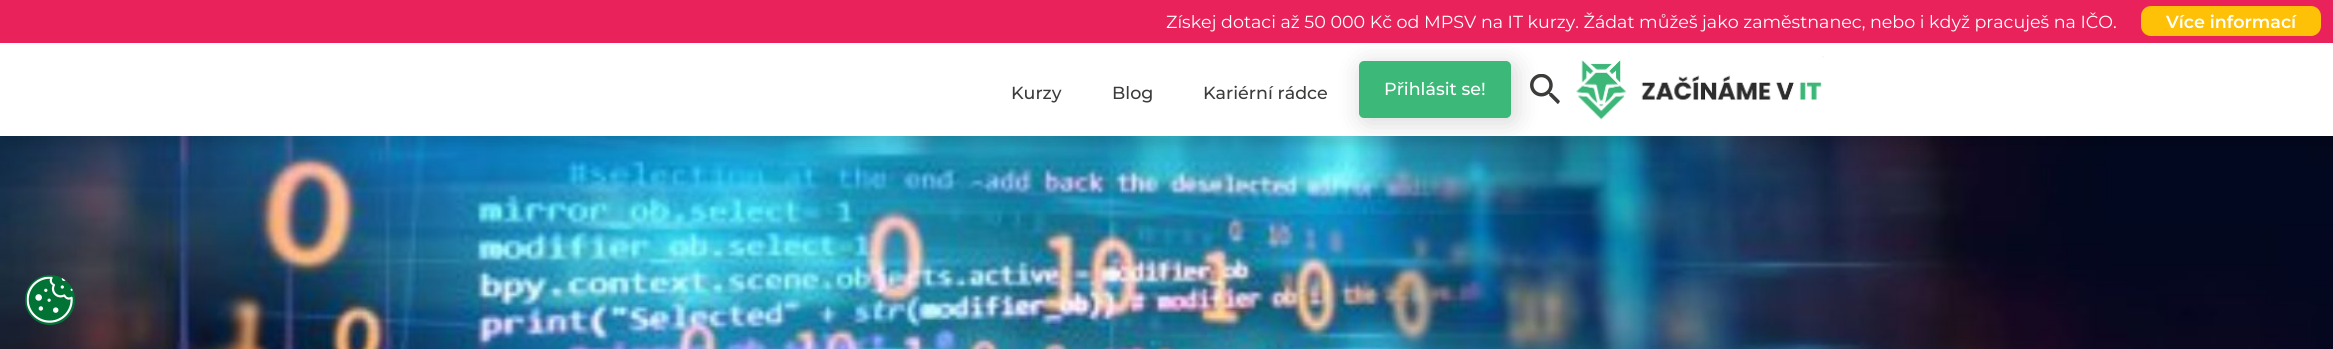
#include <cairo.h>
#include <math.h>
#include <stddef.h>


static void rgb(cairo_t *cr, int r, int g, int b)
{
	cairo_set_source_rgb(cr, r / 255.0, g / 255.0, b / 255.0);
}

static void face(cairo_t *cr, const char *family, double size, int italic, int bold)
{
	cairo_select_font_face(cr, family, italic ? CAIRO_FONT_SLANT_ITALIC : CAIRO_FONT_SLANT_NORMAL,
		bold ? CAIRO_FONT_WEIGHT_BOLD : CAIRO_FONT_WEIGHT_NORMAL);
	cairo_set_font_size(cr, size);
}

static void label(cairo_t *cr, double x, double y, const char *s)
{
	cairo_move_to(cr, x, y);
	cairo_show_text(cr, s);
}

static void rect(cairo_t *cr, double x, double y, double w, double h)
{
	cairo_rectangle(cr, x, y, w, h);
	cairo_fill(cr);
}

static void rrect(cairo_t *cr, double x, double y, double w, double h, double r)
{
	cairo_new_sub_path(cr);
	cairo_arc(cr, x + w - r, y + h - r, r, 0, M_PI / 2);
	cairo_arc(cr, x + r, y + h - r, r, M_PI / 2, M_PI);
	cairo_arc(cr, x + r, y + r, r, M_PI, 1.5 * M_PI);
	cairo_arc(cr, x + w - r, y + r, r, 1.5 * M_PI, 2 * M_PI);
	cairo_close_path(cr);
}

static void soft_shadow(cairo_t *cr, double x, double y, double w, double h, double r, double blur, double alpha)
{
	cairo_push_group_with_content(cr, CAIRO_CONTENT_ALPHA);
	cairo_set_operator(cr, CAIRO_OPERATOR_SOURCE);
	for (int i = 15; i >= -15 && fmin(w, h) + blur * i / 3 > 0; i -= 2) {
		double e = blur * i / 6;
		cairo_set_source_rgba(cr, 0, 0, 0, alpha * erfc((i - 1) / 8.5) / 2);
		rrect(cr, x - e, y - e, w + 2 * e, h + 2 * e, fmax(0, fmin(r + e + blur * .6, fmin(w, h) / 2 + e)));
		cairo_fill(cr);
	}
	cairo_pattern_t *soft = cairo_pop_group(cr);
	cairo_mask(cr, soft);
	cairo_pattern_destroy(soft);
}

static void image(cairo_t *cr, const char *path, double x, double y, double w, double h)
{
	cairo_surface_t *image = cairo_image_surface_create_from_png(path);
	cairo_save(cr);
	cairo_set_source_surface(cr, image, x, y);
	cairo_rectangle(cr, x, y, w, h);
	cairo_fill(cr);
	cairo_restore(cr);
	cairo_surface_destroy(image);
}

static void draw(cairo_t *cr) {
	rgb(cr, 255, 255, 255);
	cairo_paint(cr);
	image(cr, "image2.png", 0, 136, 2333, 213);
	rgb(cr, 0, 0, 0);
	soft_shadow(cr, -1, 5, 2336, 139, 0, 6, 0.15);
	rgb(cr, 255, 255, 255);
	rect(cr, 0, 43, 2333, 93);
	rgb(cr, 233, 34, 91);
	rect(cr, 0, 0, 2333, 43);
	face(cr, "Montserrat", 17.5, 0, 0);
	rgb(cr, 255, 255, 255);
	label(cr, 1166, 28, "Získej dotaci až 50 000 Kč od MPSV na IT kurzy. Žádat můžeš jako zaměstnanec, nebo i když pracuješ na IČO.");
	rgb(cr, 255, 193, 7);
	rrect(cr, 2141, 6, 180, 30, 10);
	cairo_fill(cr);
	face(cr, "Montserrat SemiBold", 17.5, 0, 0);
	rgb(cr, 255, 255, 255);
	label(cr, 2166, 28, "Více informací");
	face(cr, "Montserrat Medium", 17.5, 0, 0);
	rgb(cr, 60, 60, 59);
	label(cr, 1011, 99, "Kurzy");
	label(cr, 1112, 99, "Blog");
	label(cr, 1203, 99, "Kariérní rádce");
	image(cr, "image0.png", 1530, 74, 30, 30);
	rgb(cr, 0, 0, 0);
	soft_shadow(cr, 1361, 64, 155, 59, 6, 12.5, 0.15);
	rgb(cr, 60, 184, 120);
	rrect(cr, 1359, 61, 152, 57, 5);
	cairo_fill(cr);
	rgb(cr, 255, 255, 255);
	label(cr, 1384, 95, "Přihlásit se!");
	image(cr, "image1.png", 1576, 56, 248, 64);
	rgb(cr, 0, 115, 53);
	cairo_arc(cr, 50, 300, 25, 0, 2 * M_PI);
	cairo_fill(cr);
	image(cr, "image3.png", 26, 276, 47, 47);
}

int main(void) {
	cairo_surface_t *surface = cairo_image_surface_create(CAIRO_FORMAT_RGB24, 2333, 349);
	cairo_t *cr = cairo_create(surface);
	cairo_font_options_t *options = cairo_font_options_create();
	cairo_font_options_set_hint_metrics(options, CAIRO_HINT_METRICS_OFF);
	cairo_font_options_set_hint_style(options, CAIRO_HINT_STYLE_NONE);
	cairo_set_font_options(cr, options);
	cairo_set_miter_limit(cr, 4);
	draw(cr);
	cairo_surface_write_to_png(surface, "render.png");
	cairo_font_options_destroy(options);
	cairo_destroy(cr);
	cairo_surface_destroy(surface);
	return 0;
}
